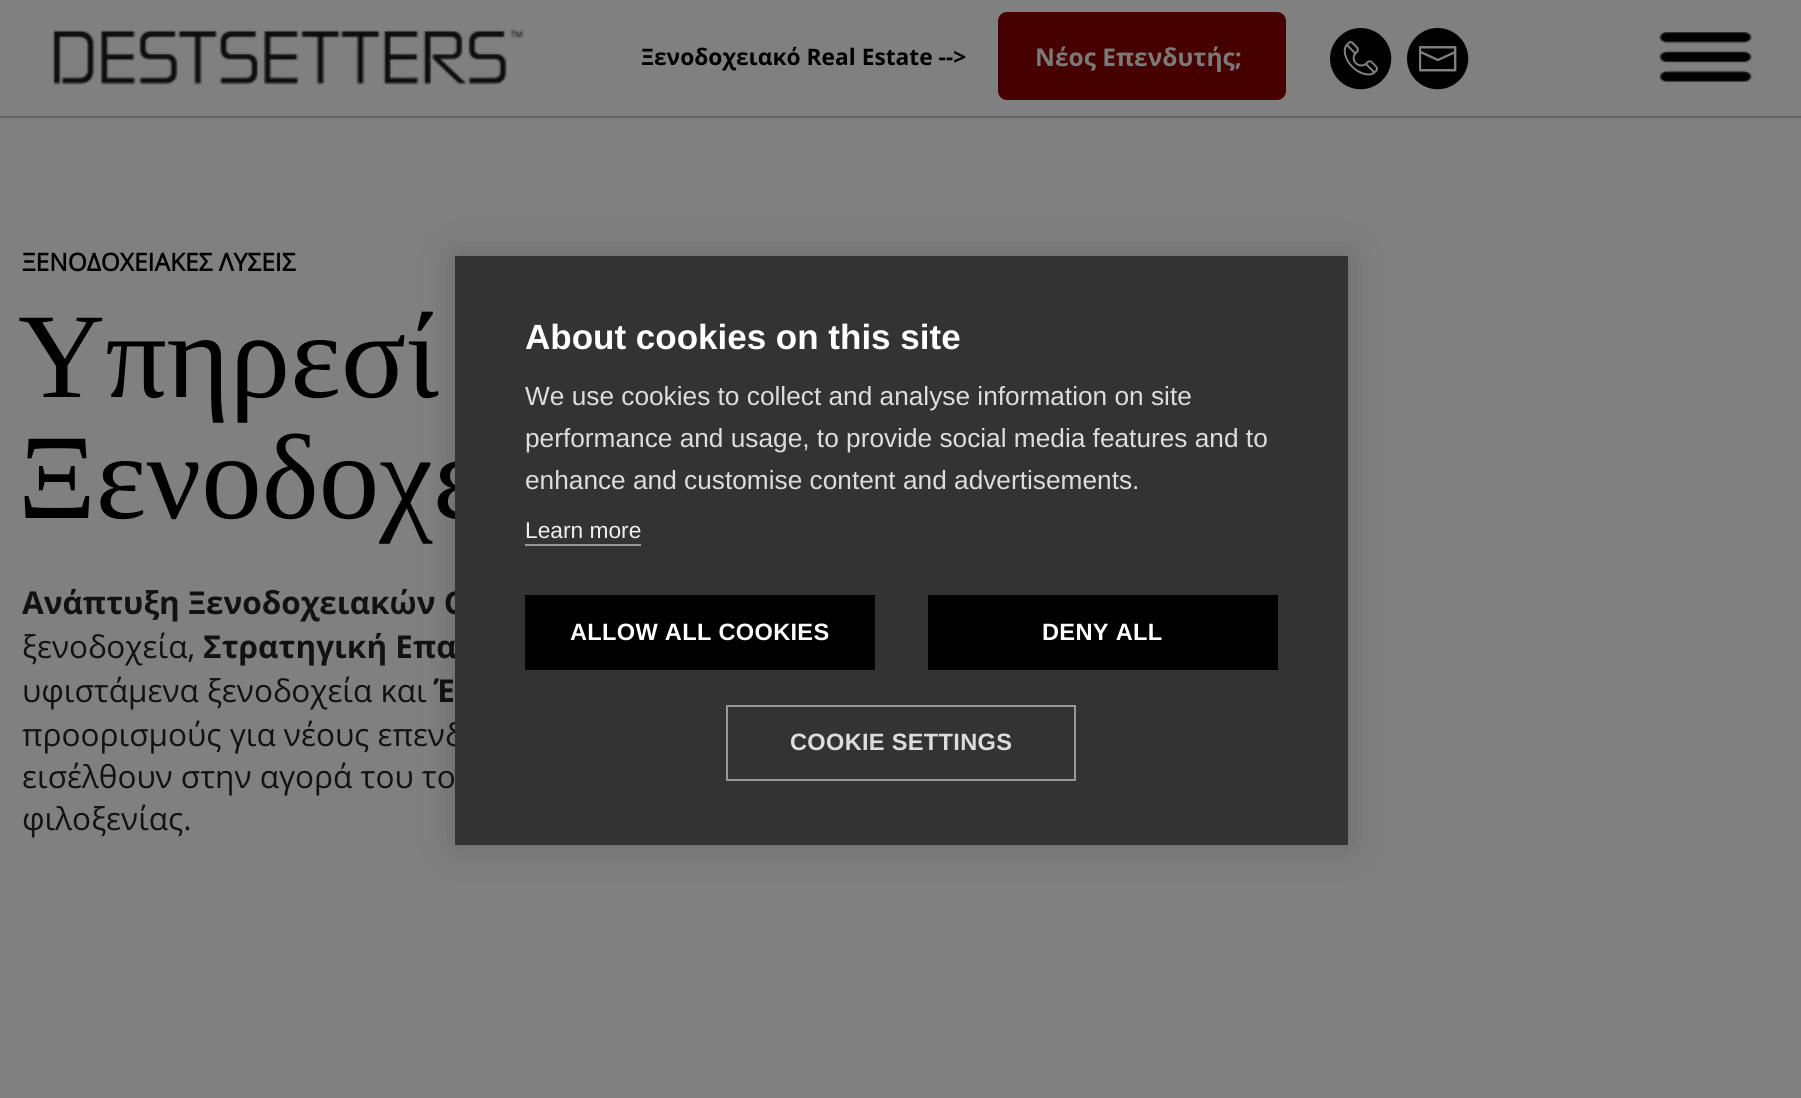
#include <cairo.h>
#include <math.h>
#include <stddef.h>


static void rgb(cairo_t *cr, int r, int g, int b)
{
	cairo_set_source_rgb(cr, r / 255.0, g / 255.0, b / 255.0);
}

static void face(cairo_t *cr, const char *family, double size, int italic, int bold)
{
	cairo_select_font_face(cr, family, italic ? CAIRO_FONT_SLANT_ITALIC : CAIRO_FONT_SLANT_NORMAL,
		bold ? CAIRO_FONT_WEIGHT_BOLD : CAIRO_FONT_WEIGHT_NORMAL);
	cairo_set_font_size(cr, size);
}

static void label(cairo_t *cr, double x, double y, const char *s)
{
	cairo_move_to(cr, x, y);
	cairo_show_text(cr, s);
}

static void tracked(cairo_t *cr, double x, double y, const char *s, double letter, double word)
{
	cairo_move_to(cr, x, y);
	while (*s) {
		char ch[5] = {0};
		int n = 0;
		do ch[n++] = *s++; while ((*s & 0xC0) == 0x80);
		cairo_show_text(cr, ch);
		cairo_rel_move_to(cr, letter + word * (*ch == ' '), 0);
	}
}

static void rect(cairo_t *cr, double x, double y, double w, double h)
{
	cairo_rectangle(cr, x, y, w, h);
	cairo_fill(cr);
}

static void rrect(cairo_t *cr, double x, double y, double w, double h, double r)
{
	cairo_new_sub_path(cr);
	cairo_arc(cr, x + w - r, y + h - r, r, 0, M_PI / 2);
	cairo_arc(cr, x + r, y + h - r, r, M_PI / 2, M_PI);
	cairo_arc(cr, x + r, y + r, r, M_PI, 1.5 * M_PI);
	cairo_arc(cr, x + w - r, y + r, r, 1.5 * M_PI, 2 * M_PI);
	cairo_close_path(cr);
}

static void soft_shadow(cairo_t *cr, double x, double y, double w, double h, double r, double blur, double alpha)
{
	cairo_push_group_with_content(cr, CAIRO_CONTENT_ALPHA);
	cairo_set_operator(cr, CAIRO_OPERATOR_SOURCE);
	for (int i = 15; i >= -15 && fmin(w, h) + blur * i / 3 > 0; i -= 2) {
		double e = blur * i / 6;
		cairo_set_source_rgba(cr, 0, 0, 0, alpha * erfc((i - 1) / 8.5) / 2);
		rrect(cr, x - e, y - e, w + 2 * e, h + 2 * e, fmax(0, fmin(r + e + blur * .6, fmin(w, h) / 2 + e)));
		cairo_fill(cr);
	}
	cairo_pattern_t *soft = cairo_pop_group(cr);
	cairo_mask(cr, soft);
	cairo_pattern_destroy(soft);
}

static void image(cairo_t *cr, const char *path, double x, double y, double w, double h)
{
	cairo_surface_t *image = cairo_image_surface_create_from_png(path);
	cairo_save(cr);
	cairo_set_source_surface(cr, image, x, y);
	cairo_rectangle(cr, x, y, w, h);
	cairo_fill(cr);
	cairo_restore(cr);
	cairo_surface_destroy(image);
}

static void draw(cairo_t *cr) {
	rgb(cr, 128, 128, 128);
	cairo_paint(cr);
	image(cr, "image0.png", 52, 29, 472, 56);
	face(cr, "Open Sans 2", 22.75, 0, 1);
	rgb(cr, 0, 0, 0);
	label(cr, 641, 65, "Ξενοδοχειακό Real Estate -->");
	rgb(cr, 70, 0, 0);
	rrect(cr, 998, 12, 288, 88, 9);
	cairo_fill(cr);
	face(cr, "Open Sans 2", 24.5, 0, 1);
	rgb(cr, 122, 122, 121);
	label(cr, 1035, 66, "Νέος Επενδυτής;");
	image(cr, "image1.png", 1330, 28, 62, 62);
	image(cr, "image2.png", 1407, 28, 62, 62);
	image(cr, "image3.png", 1658, 32, 95, 51);
	rgb(cr, 100, 100, 100);
	rect(cr, 0, 116, 1801, 2);
	face(cr, "Open Sans", 24.5, 0, 1);
	rgb(cr, 0, 0, 0);
	label(cr, 22, 271, "ΞΕΝΟΔΟΧΕΙΑΚΕΣ ΛΥΣΕΙΣ");
	face(cr, "Liberation Serif", 121, 0, 0);
	label(cr, 18, 397, "Υπηρεσί");
	label(cr, 18, 518, "Ξενοδοχε");
	face(cr, "Open Sans 2", 31.5, 0, 1);
	rgb(cr, 18, 18, 18);
	label(cr, 22, 614, "Ανάπτυξη Ξενοδοχειακών C");
	face(cr, "Open Sans", 31.5, 0, 0);
	label(cr, 22, 658, "ξενοδοχεία,");
	face(cr, "Open Sans 2", 31.5, 0, 1);
	label(cr, 203, 658, "Στρατηγική Επα");
	face(cr, "Open Sans", 31.5, 0, 0);
	label(cr, 22, 702, "υφιστάμενα ξενοδοχεία και");
	face(cr, "Open Sans 2", 31.5, 0, 1);
	label(cr, 435, 702, "Έ");
	face(cr, "Open Sans", 31.5, 0, 0);
	label(cr, 22, 746, "προορισμούς για νέους επενδ");
	label(cr, 22, 788, "εισέλθουν στην αγορά του το");
	label(cr, 22, 830, "φιλοξενίας.");
	rgb(cr, 0, 0, 0);
	soft_shadow(cr, 455, 256, 893, 589, 0, 17.5, 0.2);
	rgb(cr, 51, 51, 51);
	rect(cr, 455, 256, 893, 589);
	face(cr, "Liberation Sans", 35, 0, 1);
	rgb(cr, 255, 255, 255);
	label(cr, 525, 349, "About cookies on this site");
	face(cr, "Liberation Sans", 26.25, 0, 0);
	rgb(cr, 221, 221, 221);
	label(cr, 525, 405, "We use cookies to collect and analyse information on site");
	label(cr, 525, 447, "performance and usage, to provide social media features and to");
	label(cr, 525, 489, "enhance and customise content and advertisements.");
	face(cr, "Liberation Sans", 22.75, 0, 0);
	rgb(cr, 238, 238, 238);
	label(cr, 525, 538, "Learn more");
	rgb(cr, 153, 153, 153);
	rect(cr, 525, 544, 116, 2);
	rgb(cr, 0, 0, 0);
	rect(cr, 525, 595, 350, 75);
	face(cr, "Liberation Sans", 23.6, 0, 1);
	rgb(cr, 255, 255, 255);
	tracked(cr, 570, 640, "ALLOW ALL COOKIES", 0.3, 0);
	rgb(cr, 0, 0, 0);
	rect(cr, 928, 595, 350, 75);
	rgb(cr, 255, 255, 255);
	tracked(cr, 1042, 640, "DENY ALL", 0.3, 0);
	cairo_rectangle(cr, 727, 706, 348, 74);
	rgb(cr, 153, 153, 153);
	cairo_stroke(cr);
	rgb(cr, 221, 221, 221);
	tracked(cr, 790, 750, "COOKIE SETTINGS", 0.3, 0);
}

int main(void) {
	cairo_surface_t *surface = cairo_image_surface_create(CAIRO_FORMAT_RGB24, 1801, 1098);
	cairo_t *cr = cairo_create(surface);
	cairo_font_options_t *options = cairo_font_options_create();
	cairo_font_options_set_hint_metrics(options, CAIRO_HINT_METRICS_OFF);
	cairo_font_options_set_hint_style(options, CAIRO_HINT_STYLE_NONE);
	cairo_set_font_options(cr, options);
	cairo_set_miter_limit(cr, 4);
	draw(cr);
	cairo_surface_write_to_png(surface, "render.png");
	cairo_font_options_destroy(options);
	cairo_destroy(cr);
	cairo_surface_destroy(surface);
	return 0;
}
